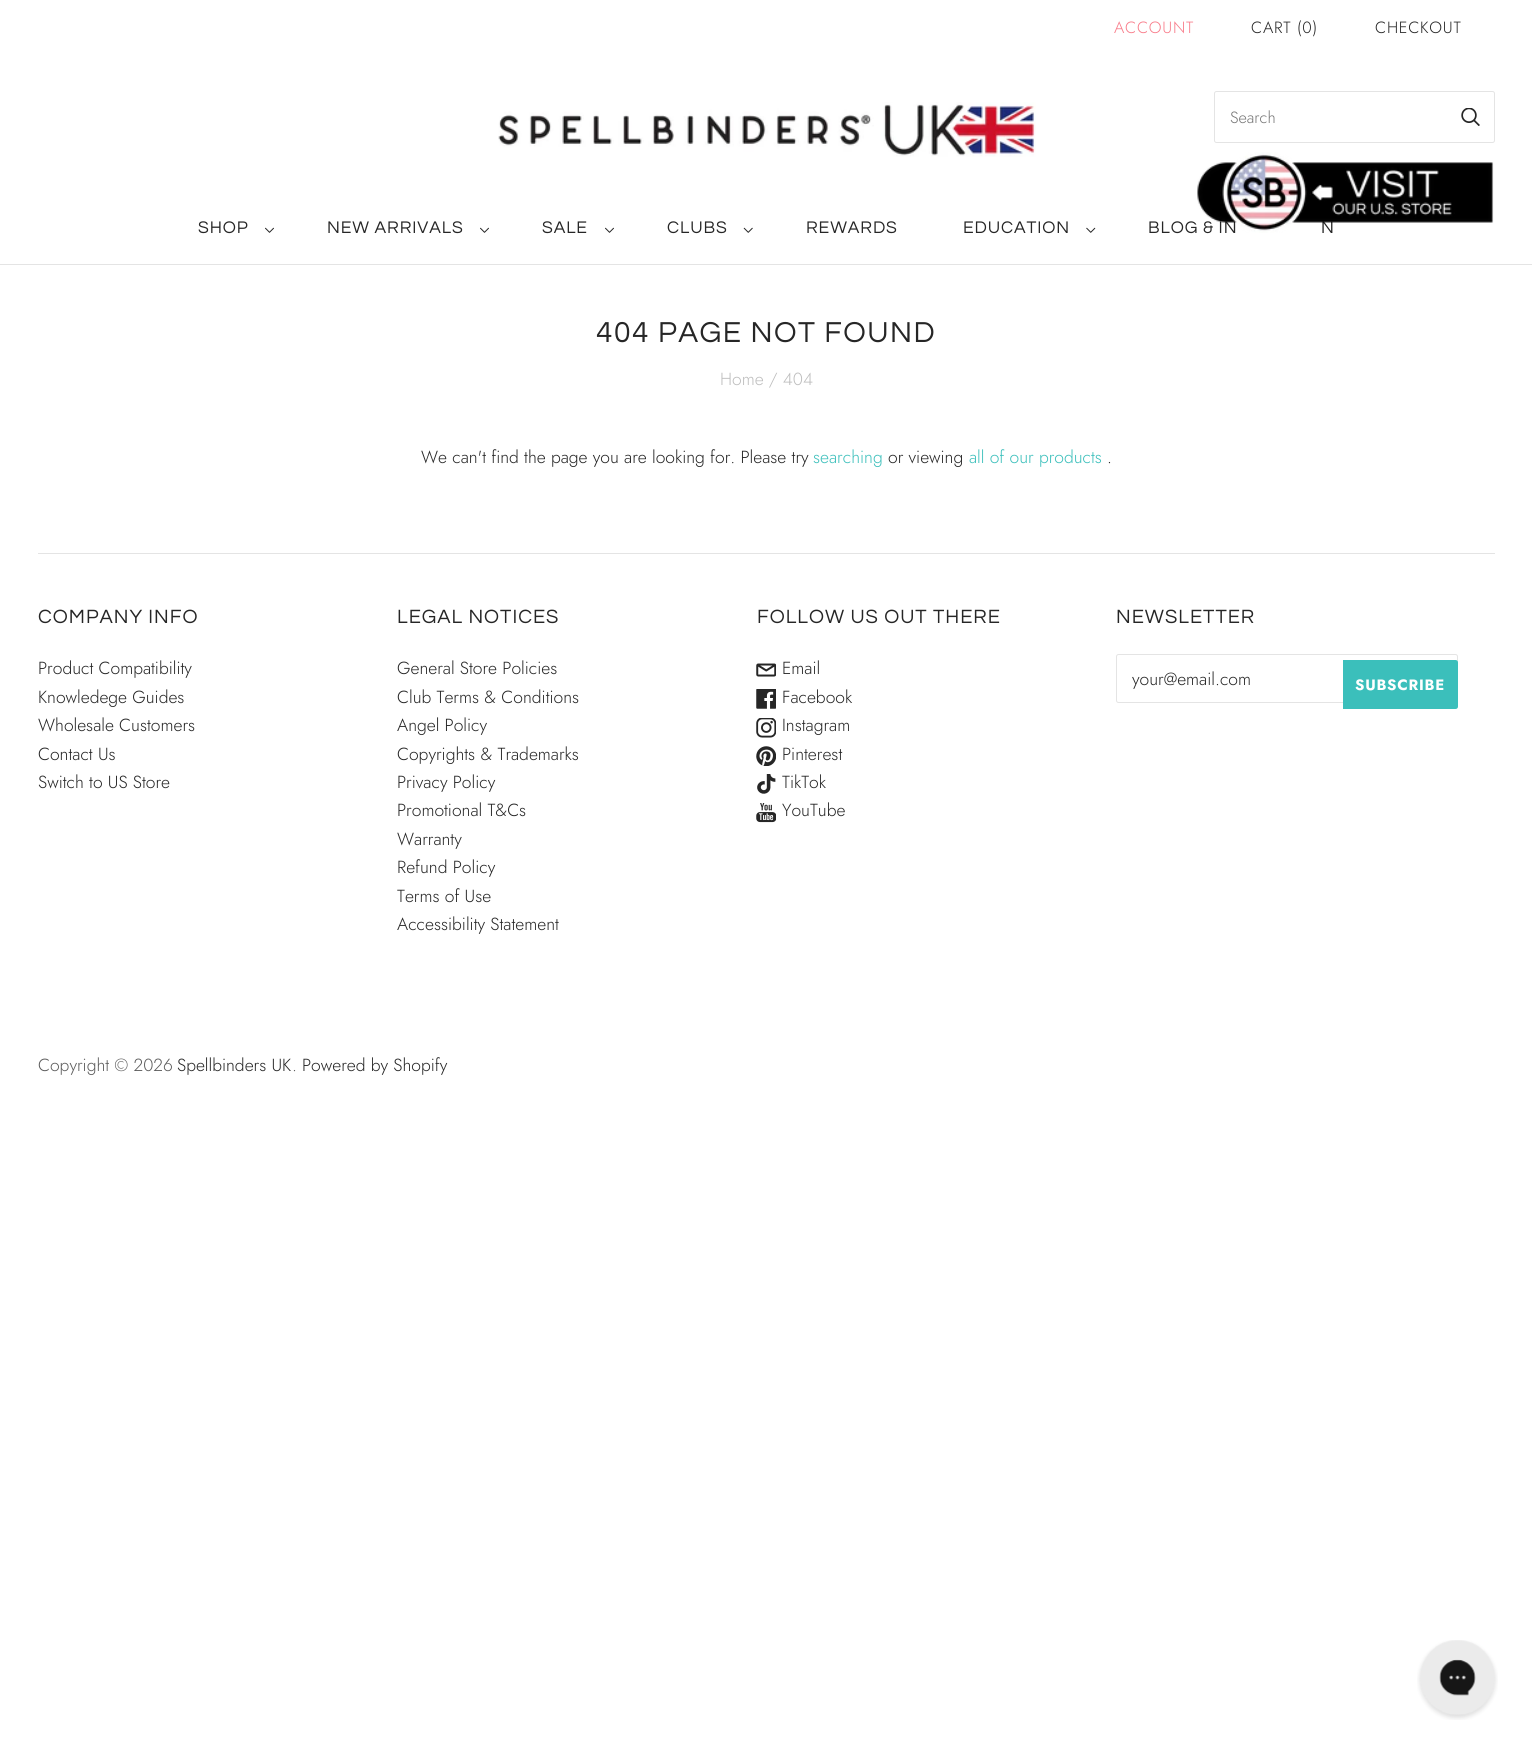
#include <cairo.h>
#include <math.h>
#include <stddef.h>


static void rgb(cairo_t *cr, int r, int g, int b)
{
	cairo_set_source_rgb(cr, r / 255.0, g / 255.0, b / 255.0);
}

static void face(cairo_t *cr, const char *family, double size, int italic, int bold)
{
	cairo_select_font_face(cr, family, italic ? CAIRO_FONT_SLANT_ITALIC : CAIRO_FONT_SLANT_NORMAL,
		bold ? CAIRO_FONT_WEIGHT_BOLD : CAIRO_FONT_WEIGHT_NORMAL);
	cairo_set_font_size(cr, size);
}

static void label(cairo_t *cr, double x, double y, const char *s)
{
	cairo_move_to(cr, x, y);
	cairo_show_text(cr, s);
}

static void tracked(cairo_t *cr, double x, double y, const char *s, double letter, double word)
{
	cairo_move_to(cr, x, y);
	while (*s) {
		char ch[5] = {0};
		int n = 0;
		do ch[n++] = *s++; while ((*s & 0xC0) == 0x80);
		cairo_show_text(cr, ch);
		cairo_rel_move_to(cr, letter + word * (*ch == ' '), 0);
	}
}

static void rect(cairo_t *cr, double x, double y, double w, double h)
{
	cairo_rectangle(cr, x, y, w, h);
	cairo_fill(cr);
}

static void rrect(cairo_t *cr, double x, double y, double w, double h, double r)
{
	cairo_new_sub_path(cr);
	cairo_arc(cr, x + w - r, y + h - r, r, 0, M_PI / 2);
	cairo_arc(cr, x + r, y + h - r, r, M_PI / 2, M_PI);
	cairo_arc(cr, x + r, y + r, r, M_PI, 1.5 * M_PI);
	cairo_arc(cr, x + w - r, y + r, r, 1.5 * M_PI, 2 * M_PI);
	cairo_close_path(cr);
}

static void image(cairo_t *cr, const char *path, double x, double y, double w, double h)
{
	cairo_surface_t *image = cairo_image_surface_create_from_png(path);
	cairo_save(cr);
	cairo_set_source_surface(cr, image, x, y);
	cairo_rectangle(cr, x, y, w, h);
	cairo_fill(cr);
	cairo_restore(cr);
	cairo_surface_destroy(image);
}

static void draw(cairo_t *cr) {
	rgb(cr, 255, 255, 255);
	cairo_paint(cr);
	rgb(cr, 228, 228, 228);
	rect(cr, 0, 264, 1532, 1);
	face(cr, "Jost Light", 16.25, 0, 0);
	rgb(cr, 248, 124, 138);
	tracked(cr, 1114, 33, "ACCOUNT", 0.75, 0);
	rgb(cr, 38, 38, 38);
	tracked(cr, 1251, 33, "CART (0)", 0.75, 0);
	tracked(cr, 1375, 33, "CHECKOUT", 0.75, 0);
	image(cr, "image0.png", 498, 102, 538, 55);
	rrect(cr, 1214.5, 91.5, 280, 51, 2);
	rgb(cr, 228, 228, 228);
	cairo_set_line_width(cr, 1);
	cairo_stroke(cr);
	rgb(cr, 117, 117, 117);
	label(cr, 1230, 123, "Search");
	image(cr, "image1.png", 1461, 108, 19, 18);
	face(cr, "Questrial", 17.5, 0, 0);
	rgb(cr, 38, 38, 38);
	tracked(cr, 1148, 233, "BLOG & IN", 0.9, 0);
	tracked(cr, 1321, 233, "N", 0.9, 0);
	image(cr, "image2.png", 1197, 152, 297, 81);
	tracked(cr, 198, 233, "SHOP", 0.9, 0);
	image(cr, "image3.png", 265, 227, 9, 6);
	tracked(cr, 327, 233, "NEW ARRIVALS", 0.9, 0);
	image(cr, "image3.png", 480, 227, 9, 6);
	tracked(cr, 542, 233, "SALE", 0.9, 0);
	image(cr, "image3.png", 605, 227, 9, 6);
	tracked(cr, 667, 233, "CLUBS", 0.9, 0);
	image(cr, "image4.png", 743, 227, 10, 6);
	tracked(cr, 806, 233, "REWARDS", 0.9, 0);
	tracked(cr, 963, 233, "EDUCATION", 0.9, 0);
	image(cr, "image5.png", 1086, 227, 10, 6);
	face(cr, "Questrial", 30, 0, 0);
	tracked(cr, 596, 342, "404 PAGE NOT FOUND", 1.5, 0);
	face(cr, "Jost Light", 17.5, 0, 0);
	rgb(cr, 189, 189, 189);
	label(cr, 720, 385, "Home / 404");
	rgb(cr, 38, 38, 38);
	label(cr, 421, 463, "We can't find the page you are looking for. Please try");
	rgb(cr, 59, 191, 187);
	label(cr, 813, 463, "searching");
	rgb(cr, 38, 38, 38);
	label(cr, 888, 463, "or viewing");
	rgb(cr, 59, 191, 187);
	label(cr, 969, 463, "all of our products");
	rgb(cr, 38, 38, 38);
	label(cr, 1107, 463, ".");
	rgb(cr, 228, 228, 228);
	rect(cr, 38, 553, 1457, 1);
	face(cr, "Questrial", 20, 0, 0);
	rgb(cr, 38, 38, 38);
	tracked(cr, 38, 623, "COMPANY INFO", 1, 0);
	face(cr, "Jost Light", 17.5, 0, 0);
	label(cr, 38, 674, "Product Compatibility");
	label(cr, 38, 703, "Knowledege Guides");
	label(cr, 38, 731, "Wholesale Customers");
	label(cr, 38, 760, "Contact Us");
	label(cr, 38, 788, "Switch to US Store");
	face(cr, "Questrial", 20, 0, 0);
	tracked(cr, 397, 623, "LEGAL NOTICES", 1, 0);
	face(cr, "Jost Light", 17.5, 0, 0);
	label(cr, 397, 674, "General Store Policies");
	label(cr, 397, 703, "Club Terms & Conditions");
	label(cr, 397, 731, "Angel Policy");
	label(cr, 397, 760, "Copyrights & Trademarks");
	label(cr, 397, 788, "Privacy Policy");
	label(cr, 397, 816, "Promotional T&Cs");
	label(cr, 397, 845, "Warranty");
	label(cr, 397, 873, "Refund Policy");
	label(cr, 397, 902, "Terms of Use");
	label(cr, 397, 930, "Accessibility Statement");
	face(cr, "Questrial", 20, 0, 0);
	tracked(cr, 757, 623, "FOLLOW US OUT THERE", 1, 0);
	image(cr, "image6.png", 756, 663, 20, 14);
	face(cr, "Jost Light", 17.5, 0, 0);
	label(cr, 782, 674, "Email");
	image(cr, "image7.png", 756, 689, 20, 20);
	label(cr, 782, 703, "Facebook");
	image(cr, "image8.png", 756, 718, 20, 20);
	label(cr, 782, 731, "Instagram");
	image(cr, "image9.png", 756, 746, 20, 20);
	label(cr, 782, 760, "Pinterest");
	image(cr, "image10.png", 757, 774, 19, 20);
	label(cr, 782, 788, "TikTok");
	image(cr, "image11.png", 756, 803, 20, 20);
	label(cr, 782, 816, "YouTube");
	face(cr, "Questrial", 20, 0, 0);
	tracked(cr, 1116, 623, "NEWSLETTER", 1, 0);
	rrect(cr, 1116.5, 654.5, 341, 48, 2);
	rgb(cr, 228, 228, 228);
	cairo_stroke(cr);
	face(cr, "Jost Light", 17.5, 0, 0);
	rgb(cr, 38, 38, 38);
	label(cr, 1132, 685, "your@email.com");
	rgb(cr, 59, 191, 187);
	cairo_new_path(cr);
	cairo_move_to(cr, 1343, 660);
	cairo_line_to(cr, 1455.5, 660);
	cairo_curve_to(cr, 1457, 660, 1458, 661, 1458, 662.5);
	cairo_line_to(cr, 1458, 706.5);
	cairo_curve_to(cr, 1458, 708, 1457, 709, 1455.5, 709);
	cairo_line_to(cr, 1343, 709);
	cairo_close_path(cr);
	cairo_fill(cr);
	face(cr, "Jost", 15, 0, 1);
	rgb(cr, 255, 255, 255);
	tracked(cr, 1355, 690, "SUBSCRIBE", 0.75, 0);
	face(cr, "Jost Light", 17.5, 0, 0);
	rgb(cr, 92, 92, 92);
	label(cr, 38, 1071, "Copyright © 2026");
	rgb(cr, 38, 38, 38);
	label(cr, 177, 1071, "Spellbinders UK");
	rgb(cr, 92, 92, 92);
	label(cr, 292, 1071, ".");
	rgb(cr, 38, 38, 38);
	label(cr, 302, 1071, "Powered by Shopify");
	image(cr, "image12.png", 1417, 1640, 81, 80);
}

int main(void) {
	cairo_surface_t *surface = cairo_image_surface_create(CAIRO_FORMAT_RGB24, 1532, 1748);
	cairo_t *cr = cairo_create(surface);
	cairo_font_options_t *options = cairo_font_options_create();
	cairo_font_options_set_hint_metrics(options, CAIRO_HINT_METRICS_OFF);
	cairo_font_options_set_hint_style(options, CAIRO_HINT_STYLE_NONE);
	cairo_set_font_options(cr, options);
	cairo_set_miter_limit(cr, 4);
	draw(cr);
	cairo_surface_write_to_png(surface, "render.png");
	cairo_font_options_destroy(options);
	cairo_destroy(cr);
	cairo_surface_destroy(surface);
	return 0;
}
